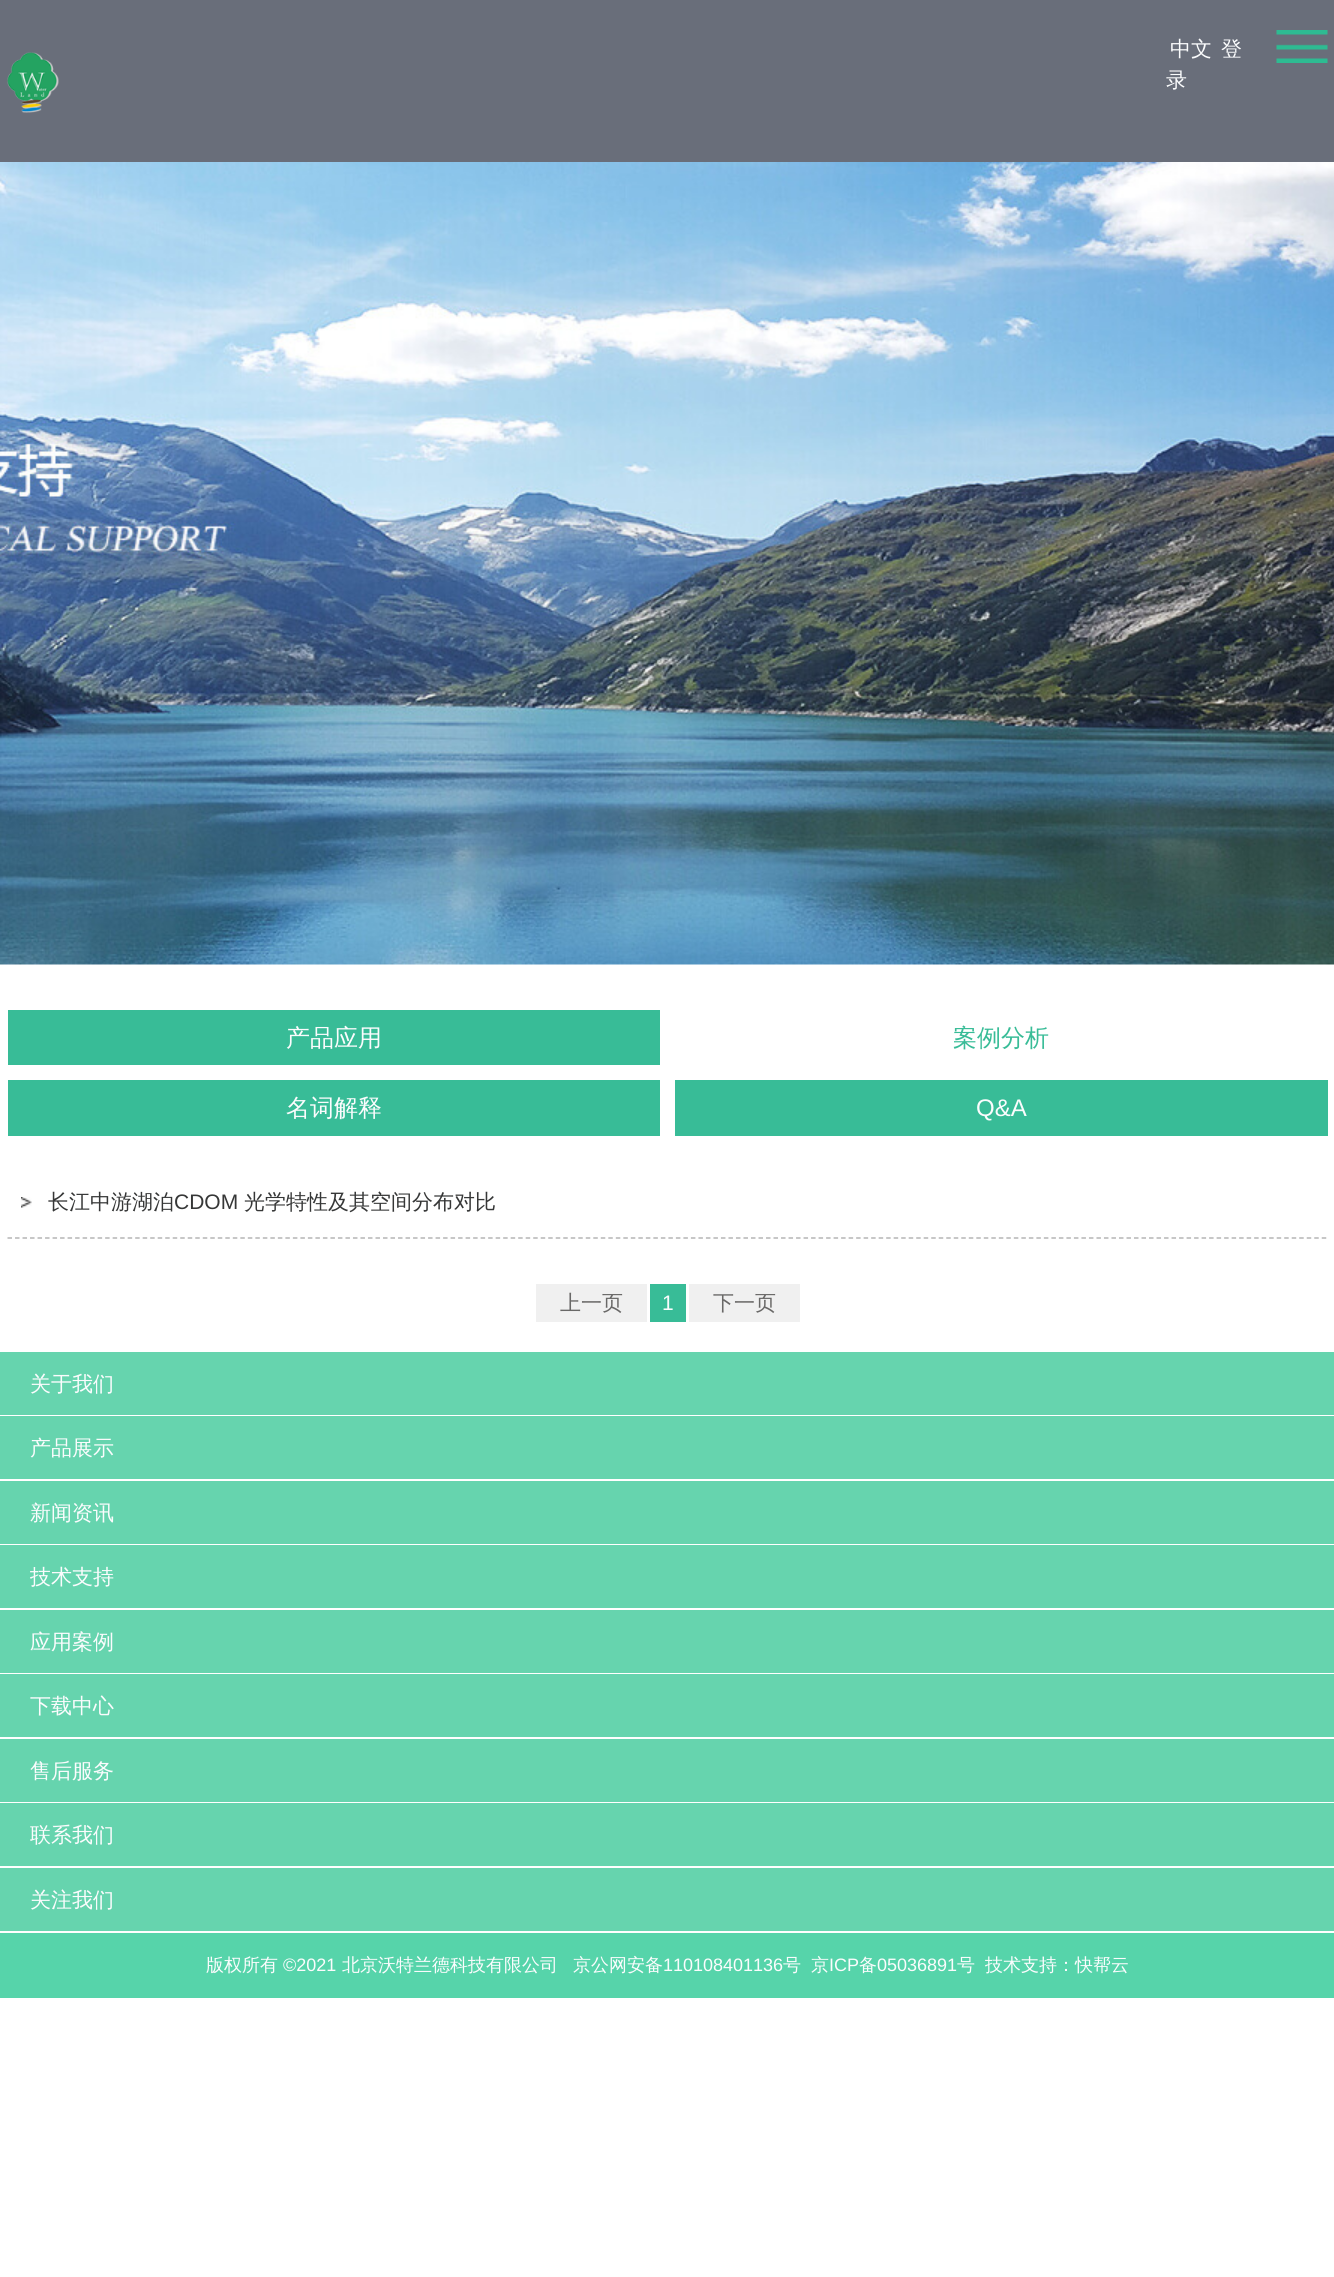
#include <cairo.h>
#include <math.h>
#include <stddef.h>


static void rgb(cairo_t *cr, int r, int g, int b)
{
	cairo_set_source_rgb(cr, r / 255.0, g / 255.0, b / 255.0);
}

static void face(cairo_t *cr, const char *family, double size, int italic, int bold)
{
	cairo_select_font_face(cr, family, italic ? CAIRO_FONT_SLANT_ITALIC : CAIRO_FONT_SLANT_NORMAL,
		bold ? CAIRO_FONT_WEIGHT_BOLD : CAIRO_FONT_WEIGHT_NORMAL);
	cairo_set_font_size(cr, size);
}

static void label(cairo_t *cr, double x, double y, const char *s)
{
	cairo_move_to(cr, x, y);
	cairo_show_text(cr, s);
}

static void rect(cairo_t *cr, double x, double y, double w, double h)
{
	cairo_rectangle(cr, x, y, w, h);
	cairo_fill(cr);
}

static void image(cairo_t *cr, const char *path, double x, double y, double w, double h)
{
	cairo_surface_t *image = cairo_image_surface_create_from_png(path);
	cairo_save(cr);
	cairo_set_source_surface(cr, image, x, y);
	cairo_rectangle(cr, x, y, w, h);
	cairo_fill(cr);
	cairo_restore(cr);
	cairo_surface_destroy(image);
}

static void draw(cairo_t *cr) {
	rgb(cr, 255, 255, 255);
	cairo_paint(cr);
	rgb(cr, 105, 110, 122);
	rect(cr, 0, 0, 1334, 162);
	image(cr, "image0.png", 7, 52, 52, 61);
	face(cr, "WenQuanYi Zen Hei Medium", 21, 0, 0);
	rgb(cr, 251, 252, 253);
	label(cr, 1170, 56, "中文");
	label(cr, 1221, 56, "登");
	label(cr, 1166, 87, "录");
	image(cr, "image1.png", 1276, 30, 52, 33);
	image(cr, "image2.png", 0, 162, 1334, 803);
	rgb(cr, 56, 188, 151);
	rect(cr, 8, 1010, 652, 55);
	face(cr, "WenQuanYi Zen Hei Medium", 24, 0, 0);
	rgb(cr, 251, 252, 253);
	label(cr, 286, 1046, "产品应用");
	rgb(cr, 56, 188, 151);
	label(cr, 953, 1046, "案例分析");
	rect(cr, 8, 1080, 652, 56);
	rgb(cr, 251, 252, 253);
	label(cr, 286, 1116, "名词解释");
	rgb(cr, 56, 188, 151);
	rect(cr, 675, 1080, 653, 56);
	face(cr, "Liberation Sans", 24, 0, 0);
	rgb(cr, 251, 252, 253);
	label(cr, 976, 1116, "Q&A");
	image(cr, "image3.png", 21, 1197, 11, 11);
	cairo_new_path(cr);
	cairo_move_to(cr, 7.5, 1238);
	cairo_line_to(cr, 1327.5, 1238);
	rgb(cr, 181, 181, 181);
	cairo_set_line_width(cr, 1.5);
	cairo_set_dash(cr, (double[]){4.5, 3.01}, 2, 0);
	cairo_stroke(cr);
	face(cr, "WenQuanYi Zen Hei Medium", 21, 0, 0);
	rgb(cr, 54, 55, 55);
	label(cr, 48, 1209, "长江中游湖泊");
	face(cr, "Liberation Sans", 21, 0, 0);
	label(cr, 174, 1209, "CDOM");
	face(cr, "WenQuanYi Zen Hei Medium", 21, 0, 0);
	label(cr, 244, 1209, "光学特性及其空间分布对比");
	rgb(cr, 240, 240, 240);
	rect(cr, 536, 1284, 111, 38);
	rgb(cr, 105, 104, 103);
	label(cr, 560, 1310, "上一页");
	rgb(cr, 56, 188, 151);
	rect(cr, 650, 1284, 36, 38);
	face(cr, "Liberation Sans", 21, 0, 0);
	rgb(cr, 251, 252, 253);
	label(cr, 662, 1310, "1");
	rgb(cr, 240, 240, 240);
	rect(cr, 689, 1284, 111, 38);
	face(cr, "WenQuanYi Zen Hei Medium", 21, 0, 0);
	rgb(cr, 105, 104, 103);
	label(cr, 713, 1310, "下一页");
	rgb(cr, 102, 212, 174);
	rect(cr, 0, 1352, 1334, 63);
	rgb(cr, 251, 252, 253);
	label(cr, 30, 1391, "关于我们");
	rgb(cr, 102, 212, 174);
	rect(cr, 0, 1416, 1334, 63);
	rgb(cr, 251, 252, 253);
	label(cr, 30, 1455, "产品展示");
	rgb(cr, 102, 212, 174);
	rect(cr, 0, 1481, 1334, 63);
	rgb(cr, 251, 252, 253);
	label(cr, 30, 1520, "新闻资讯");
	rgb(cr, 102, 212, 174);
	rect(cr, 0, 1545, 1334, 63);
	rgb(cr, 251, 252, 253);
	label(cr, 30, 1584, "技术支持");
	rgb(cr, 102, 212, 174);
	rect(cr, 0, 1610, 1334, 63);
	rgb(cr, 251, 252, 253);
	label(cr, 30, 1649, "应用案例");
	rgb(cr, 102, 212, 174);
	rect(cr, 0, 1674, 1334, 63);
	rgb(cr, 251, 252, 253);
	label(cr, 30, 1713, "下载中心");
	rgb(cr, 102, 212, 174);
	rect(cr, 0, 1739, 1334, 63);
	rgb(cr, 251, 252, 253);
	label(cr, 30, 1778, "售后服务");
	rgb(cr, 102, 212, 174);
	rect(cr, 0, 1803, 1334, 63);
	rgb(cr, 251, 252, 253);
	label(cr, 30, 1842, "联系我们");
	rgb(cr, 102, 212, 174);
	rect(cr, 0, 1868, 1334, 63);
	rgb(cr, 251, 252, 253);
	label(cr, 30, 1907, "关注我们");
	rgb(cr, 86, 212, 170);
	rect(cr, 0, 1933, 1334, 65);
	face(cr, "WenQuanYi Zen Hei Medium", 18, 0, 0);
	rgb(cr, 251, 252, 253);
	label(cr, 206, 1971, "版权所有");
	face(cr, "Liberation Sans", 18, 0, 0);
	label(cr, 283, 1971, "©2021");
	face(cr, "WenQuanYi Zen Hei Medium", 18, 0, 0);
	label(cr, 342, 1971, "北京沃特兰德科技有限公司");
	label(cr, 573, 1971, "京公网安备");
	face(cr, "Liberation Sans", 18, 0, 0);
	label(cr, 663, 1971, "110108401136");
	face(cr, "WenQuanYi Zen Hei Medium", 18, 0, 0);
	label(cr, 783, 1971, "号");
	label(cr, 811, 1971, "京");
	face(cr, "Liberation Sans", 18, 0, 0);
	label(cr, 829, 1971, "ICP");
	face(cr, "WenQuanYi Zen Hei Medium", 18, 0, 0);
	label(cr, 859, 1971, "备");
	face(cr, "Liberation Sans", 18, 0, 0);
	label(cr, 877, 1971, "05036891");
	face(cr, "WenQuanYi Zen Hei Medium", 18, 0, 0);
	label(cr, 957, 1971, "号");
	label(cr, 985, 1971, "技术支持：快帮云");
}

int main(void) {
	cairo_surface_t *surface = cairo_image_surface_create(CAIRO_FORMAT_RGB24, 1334, 2277);
	cairo_t *cr = cairo_create(surface);
	cairo_font_options_t *options = cairo_font_options_create();
	cairo_font_options_set_hint_metrics(options, CAIRO_HINT_METRICS_OFF);
	cairo_font_options_set_hint_style(options, CAIRO_HINT_STYLE_NONE);
	cairo_set_font_options(cr, options);
	cairo_set_miter_limit(cr, 4);
	draw(cr);
	cairo_surface_write_to_png(surface, "render.png");
	cairo_font_options_destroy(options);
	cairo_destroy(cr);
	cairo_surface_destroy(surface);
	return 0;
}
